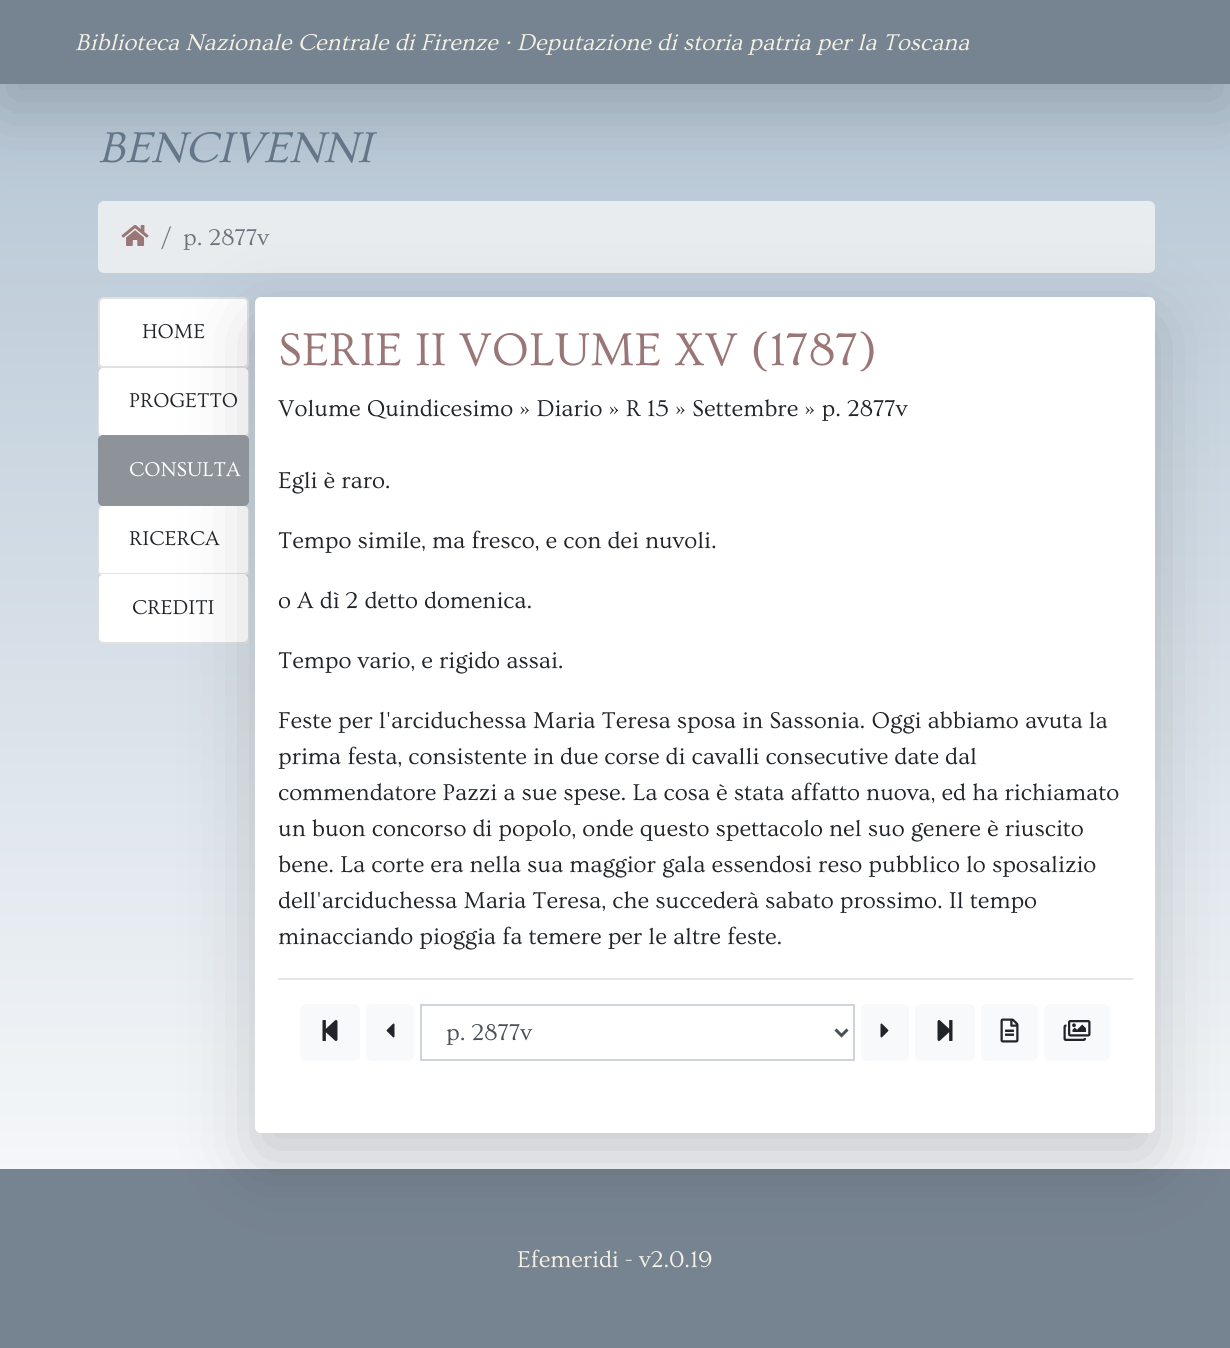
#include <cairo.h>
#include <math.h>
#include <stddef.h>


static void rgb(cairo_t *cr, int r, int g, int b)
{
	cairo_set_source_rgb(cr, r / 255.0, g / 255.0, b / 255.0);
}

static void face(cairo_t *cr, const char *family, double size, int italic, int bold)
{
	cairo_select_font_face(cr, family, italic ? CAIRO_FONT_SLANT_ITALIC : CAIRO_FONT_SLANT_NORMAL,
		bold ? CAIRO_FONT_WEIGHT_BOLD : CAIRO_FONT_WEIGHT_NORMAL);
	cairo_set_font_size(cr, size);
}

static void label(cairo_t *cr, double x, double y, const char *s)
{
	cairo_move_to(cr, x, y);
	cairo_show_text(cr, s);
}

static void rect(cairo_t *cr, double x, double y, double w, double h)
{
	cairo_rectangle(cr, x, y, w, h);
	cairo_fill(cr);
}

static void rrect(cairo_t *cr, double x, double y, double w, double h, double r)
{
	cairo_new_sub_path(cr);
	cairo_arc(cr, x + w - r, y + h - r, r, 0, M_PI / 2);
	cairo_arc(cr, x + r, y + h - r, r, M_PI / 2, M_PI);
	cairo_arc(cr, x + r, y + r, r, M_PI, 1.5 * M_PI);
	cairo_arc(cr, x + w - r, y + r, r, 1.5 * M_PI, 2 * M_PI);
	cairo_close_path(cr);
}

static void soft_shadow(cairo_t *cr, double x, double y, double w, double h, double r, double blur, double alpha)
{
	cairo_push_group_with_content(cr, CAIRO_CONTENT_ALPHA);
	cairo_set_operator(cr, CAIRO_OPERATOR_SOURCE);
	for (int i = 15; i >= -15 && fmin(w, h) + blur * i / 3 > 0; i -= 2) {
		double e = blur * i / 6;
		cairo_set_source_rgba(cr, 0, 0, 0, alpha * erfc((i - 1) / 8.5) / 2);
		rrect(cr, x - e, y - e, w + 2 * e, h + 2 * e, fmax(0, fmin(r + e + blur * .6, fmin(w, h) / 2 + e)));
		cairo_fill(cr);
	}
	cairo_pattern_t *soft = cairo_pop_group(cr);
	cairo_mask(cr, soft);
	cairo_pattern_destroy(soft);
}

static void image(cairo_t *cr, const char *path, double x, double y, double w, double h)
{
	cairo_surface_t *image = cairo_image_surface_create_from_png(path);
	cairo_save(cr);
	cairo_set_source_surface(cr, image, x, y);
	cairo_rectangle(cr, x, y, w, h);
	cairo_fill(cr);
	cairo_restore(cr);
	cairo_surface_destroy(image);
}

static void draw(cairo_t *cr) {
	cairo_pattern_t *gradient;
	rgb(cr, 255, 255, 255);
	cairo_paint(cr);
	gradient = cairo_pattern_create_linear(615, -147, 615, 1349);
	cairo_pattern_add_color_stop_rgba(gradient, 0, 0.663, 0.737, 0.804, 1);
	cairo_pattern_add_color_stop_rgba(gradient, 1, 1, 1, 1, 1);
	cairo_set_source(cr, gradient);
	cairo_pattern_destroy(gradient);
	rect(cr, 0, 84, 1230, 1085);
	rgb(cr, 233, 236, 239);
	rrect(cr, 98, 201, 1057, 72, 6);
	cairo_fill(cr);
	rgb(cr, 0, 0, 0);
	soft_shadow(cr, 0, 24, 1230, 84, 0, 36, 0.18);
	rgb(cr, 118, 131, 144);
	rect(cr, 0, 0, 1230, 84);
	face(cr, "Ovo", 24, 1, 0);
	rgb(cr, 244, 240, 226);
	label(cr, 75, 50, "Biblioteca Nazionale Centrale di Firenze · Deputazione di storia patria per la Toscana");
	face(cr, "Ovo", 45, 1, 0);
	rgb(cr, 100, 118, 136);
	label(cr, 98, 162, "BENCIVENNI");
	image(cr, "image0.png", 121, 225, 28, 21);
	face(cr, "Ovo", 24, 0, 0);
	rgb(cr, 108, 117, 125);
	label(cr, 161, 245, "/");
	label(cr, 183, 245, "p. 2877v");
	rgb(cr, 255, 255, 255);
	cairo_new_path(cr);
	cairo_move_to(cr, 104, 297);
	cairo_line_to(cr, 243, 297);
	cairo_curve_to(cr, 246.5, 297, 249, 299.5, 249, 303);
	cairo_line_to(cr, 249, 363);
	cairo_curve_to(cr, 249, 366, 247, 368, 244, 368);
	cairo_line_to(cr, 103, 368);
	cairo_curve_to(cr, 100, 368, 98, 366, 98, 363);
	cairo_line_to(cr, 98, 303);
	cairo_curve_to(cr, 98, 299.5, 100.5, 297, 104, 297);
	cairo_close_path(cr);
	cairo_fill(cr);
	cairo_new_path(cr);
	cairo_move_to(cr, 104, 298);
	cairo_line_to(cr, 243, 298);
	cairo_curve_to(cr, 246, 298, 248, 300, 248, 303);
	cairo_line_to(cr, 248, 363);
	cairo_curve_to(cr, 248, 365, 246, 367, 244, 367);
	cairo_line_to(cr, 103, 367);
	cairo_curve_to(cr, 101, 367, 99, 365, 99, 363);
	cairo_line_to(cr, 99, 303);
	cairo_curve_to(cr, 99, 300, 101, 298, 104, 298);
	cairo_close_path(cr);
	cairo_set_source_rgba(cr, 0, 0, 0, 0.12);
	cairo_stroke(cr);
	face(cr, "Ovo", 21, 0, 0);
	rgb(cr, 33, 37, 41);
	label(cr, 142, 338, "HOME");
	rgb(cr, 255, 255, 255);
	rrect(cr, 98, 368, 151, 69, 5);
	cairo_fill(cr);
	cairo_set_source_rgba(cr, 0, 0, 0, 0.12);
	cairo_set_fill_rule(cr, CAIRO_FILL_RULE_EVEN_ODD);
	cairo_new_path(cr);
	cairo_move_to(cr, 102, 368);
	cairo_line_to(cr, 244, 368);
	cairo_curve_to(cr, 247, 368, 249, 370, 249, 372);
	cairo_line_to(cr, 249, 432);
	cairo_curve_to(cr, 249, 434, 247, 436, 244, 436);
	cairo_line_to(cr, 102, 436);
	cairo_curve_to(cr, 100, 436, 98, 434, 98, 432);
	cairo_line_to(cr, 98, 372);
	cairo_curve_to(cr, 98, 370, 100, 368, 102, 368);
	cairo_close_path(cr);
	cairo_move_to(cr, 102, 368);
	cairo_line_to(cr, 244, 368);
	cairo_curve_to(cr, 246, 368, 248, 370, 248, 372);
	cairo_line_to(cr, 248, 432);
	cairo_curve_to(cr, 248, 434, 246, 435, 244, 435);
	cairo_line_to(cr, 102, 435);
	cairo_curve_to(cr, 100, 435, 99, 434, 99, 432);
	cairo_line_to(cr, 99, 372);
	cairo_curve_to(cr, 99, 370, 100, 368, 102, 368);
	cairo_close_path(cr);
	cairo_fill(cr);
	rgb(cr, 33, 37, 41);
	label(cr, 129, 407, "PROGETTO");
	rgb(cr, 255, 255, 255);
	rrect(cr, 98, 506, 151, 69, 5);
	cairo_fill(cr);
	cairo_set_source_rgba(cr, 0, 0, 0, 0.12);
	cairo_new_path(cr);
	cairo_move_to(cr, 102, 506);
	cairo_line_to(cr, 244, 506);
	cairo_curve_to(cr, 247, 506, 249, 508, 249, 510);
	cairo_line_to(cr, 249, 570);
	cairo_curve_to(cr, 249, 572, 247, 574, 244, 574);
	cairo_line_to(cr, 102, 574);
	cairo_curve_to(cr, 100, 574, 98, 572, 98, 570);
	cairo_line_to(cr, 98, 510);
	cairo_curve_to(cr, 98, 508, 100, 506, 102, 506);
	cairo_close_path(cr);
	cairo_move_to(cr, 102, 506);
	cairo_line_to(cr, 244, 506);
	cairo_curve_to(cr, 246, 506, 248, 508, 248, 510);
	cairo_line_to(cr, 248, 570);
	cairo_curve_to(cr, 248, 572, 246, 573, 244, 573);
	cairo_line_to(cr, 102, 573);
	cairo_curve_to(cr, 100, 573, 99, 572, 99, 570);
	cairo_line_to(cr, 99, 510);
	cairo_curve_to(cr, 99, 508, 100, 506, 102, 506);
	cairo_close_path(cr);
	cairo_fill(cr);
	rgb(cr, 255, 255, 255);
	cairo_new_path(cr);
	cairo_move_to(cr, 103, 575);
	cairo_line_to(cr, 244, 575);
	cairo_curve_to(cr, 247, 575, 249, 577, 249, 580);
	cairo_line_to(cr, 249, 638);
	cairo_curve_to(cr, 249, 641.5, 246.5, 644, 243, 644);
	cairo_line_to(cr, 104, 644);
	cairo_curve_to(cr, 100.5, 644, 98, 641.5, 98, 638);
	cairo_line_to(cr, 98, 580);
	cairo_curve_to(cr, 98, 577, 100, 575, 103, 575);
	cairo_close_path(cr);
	cairo_fill(cr);
	cairo_set_source_rgba(cr, 0, 0, 0, 0.12);
	cairo_new_path(cr);
	cairo_move_to(cr, 102, 574);
	cairo_line_to(cr, 244, 574);
	cairo_curve_to(cr, 247, 574, 249, 577, 249, 579);
	cairo_line_to(cr, 249, 638);
	cairo_curve_to(cr, 249, 641, 246, 644, 243, 644);
	cairo_line_to(cr, 104, 644);
	cairo_curve_to(cr, 100, 644, 98, 641, 98, 638);
	cairo_line_to(cr, 98, 579);
	cairo_curve_to(cr, 98, 577, 100, 574, 102, 574);
	cairo_close_path(cr);
	cairo_move_to(cr, 102, 574);
	cairo_line_to(cr, 244, 574);
	cairo_curve_to(cr, 246, 574, 248, 577, 248, 579);
	cairo_line_to(cr, 248, 638);
	cairo_curve_to(cr, 248, 640, 245, 642, 243, 642);
	cairo_line_to(cr, 104, 642);
	cairo_curve_to(cr, 101, 642, 99, 640, 99, 638);
	cairo_line_to(cr, 99, 579);
	cairo_curve_to(cr, 99, 577, 100, 574, 102, 574);
	cairo_close_path(cr);
	cairo_fill(cr);
	rgb(cr, 118, 131, 144);
	rect(cr, 0, 1169, 1230, 179);
	rgb(cr, 0, 0, 0);
	soft_shadow(cr, 255, 321, 900, 836, 6, 36, 0.18);
	rgb(cr, 141, 147, 153);
	rrect(cr, 99, 436, 149, 69, 4);
	cairo_fill_preserve(cr);
	cairo_stroke(cr);
	rgb(cr, 255, 255, 255);
	label(cr, 129, 476, "CONSULTA");
	rgb(cr, 33, 37, 41);
	label(cr, 129, 545, "RICERCA");
	label(cr, 132, 614, "CREDITI");
	rgb(cr, 255, 255, 255);
	rrect(cr, 255, 297, 900, 836, 6);
	cairo_fill(cr);
	face(cr, "Ovo", 48, 0, 0);
	rgb(cr, 154, 118, 118);
	label(cr, 278, 365, "SERIE II VOLUME XV (1787)");
	face(cr, "Ovo", 24, 0, 0);
	rgb(cr, 33, 37, 41);
	label(cr, 278, 416, "Volume Quindicesimo » Diario » R 15 » Settembre » p. 2877v");
	label(cr, 278, 488, "Egli è raro.");
	label(cr, 278, 548, "Tempo simile, ma fresco, e con dei nuvoli.");
	label(cr, 278, 608, "o A dì 2 detto domenica.");
	label(cr, 278, 668, "Tempo vario, e rigido assai.");
	label(cr, 278, 728, "Feste per l'arciduchessa Maria Teresa sposa in Sassonia. Oggi abbiamo avuta la");
	label(cr, 278, 764, "prima festa, consistente in due corse di cavalli consecutive date dal");
	label(cr, 278, 800, "commendatore Pazzi a sue spese. La cosa è stata affatto nuova, ed ha richiamato");
	label(cr, 278, 836, "un buon concorso di popolo, onde questo spettacolo nel suo genere è riuscito");
	label(cr, 278, 872, "bene. La corte era nella sua maggior gala essendosi reso pubblico lo sposalizio");
	label(cr, 278, 908, "dell'arciduchessa Maria Teresa, che succederà sabato prossimo. Il tempo");
	label(cr, 278, 944, "minacciando pioggia fa temere per le altre feste.");
	rgb(cr, 230, 230, 230);
	rect(cr, 278, 978, 855, 2);
	rgb(cr, 248, 249, 250);
	rrect(cr, 300, 1004, 60, 57, 6);
	cairo_fill(cr);
	image(cr, "image1.png", 322, 1020, 16, 21);
	rrect(cr, 366, 1004, 48, 57, 6);
	cairo_fill(cr);
	image(cr, "image2.png", 386, 1023, 9, 15);
	cairo_rectangle(cr, 421, 1005, 433, 55);
	rgb(cr, 206, 212, 218);
	cairo_stroke(cr);
	cairo_new_path(cr);
	cairo_move_to(cr, 835.5, 1029.5);
	cairo_line_to(cr, 841.5, 1035.5);
	cairo_line_to(cr, 847.5, 1029.5);
	rgb(cr, 73, 80, 87);
	cairo_set_line_width(cr, 3);
	cairo_stroke(cr);
	label(cr, 446, 1040, "p. 2877v");
	rgb(cr, 248, 249, 250);
	rrect(cr, 861, 1004, 48, 57, 6);
	cairo_fill(cr);
	image(cr, "image3.png", 880, 1023, 9, 15);
	rrect(cr, 915, 1004, 60, 57, 6);
	cairo_fill(cr);
	image(cr, "image4.png", 937, 1020, 16, 21);
	rrect(cr, 981, 1004, 57, 57, 6);
	cairo_fill(cr);
	image(cr, "image5.png", 1000, 1018, 19, 25);
	rrect(cr, 1044, 1004, 66, 57, 6);
	cairo_fill(cr);
	image(cr, "image6.png", 1063, 1020, 28, 21);
	rgb(cr, 244, 240, 226);
	label(cr, 517, 1267, "Efemeridi - v2.0.19");
}

int main(void) {
	cairo_surface_t *surface = cairo_image_surface_create(CAIRO_FORMAT_RGB24, 1230, 1348);
	cairo_t *cr = cairo_create(surface);
	cairo_font_options_t *options = cairo_font_options_create();
	cairo_font_options_set_hint_metrics(options, CAIRO_HINT_METRICS_OFF);
	cairo_font_options_set_hint_style(options, CAIRO_HINT_STYLE_NONE);
	cairo_set_font_options(cr, options);
	cairo_set_miter_limit(cr, 4);
	draw(cr);
	cairo_surface_write_to_png(surface, "render.png");
	cairo_font_options_destroy(options);
	cairo_destroy(cr);
	cairo_surface_destroy(surface);
	return 0;
}
